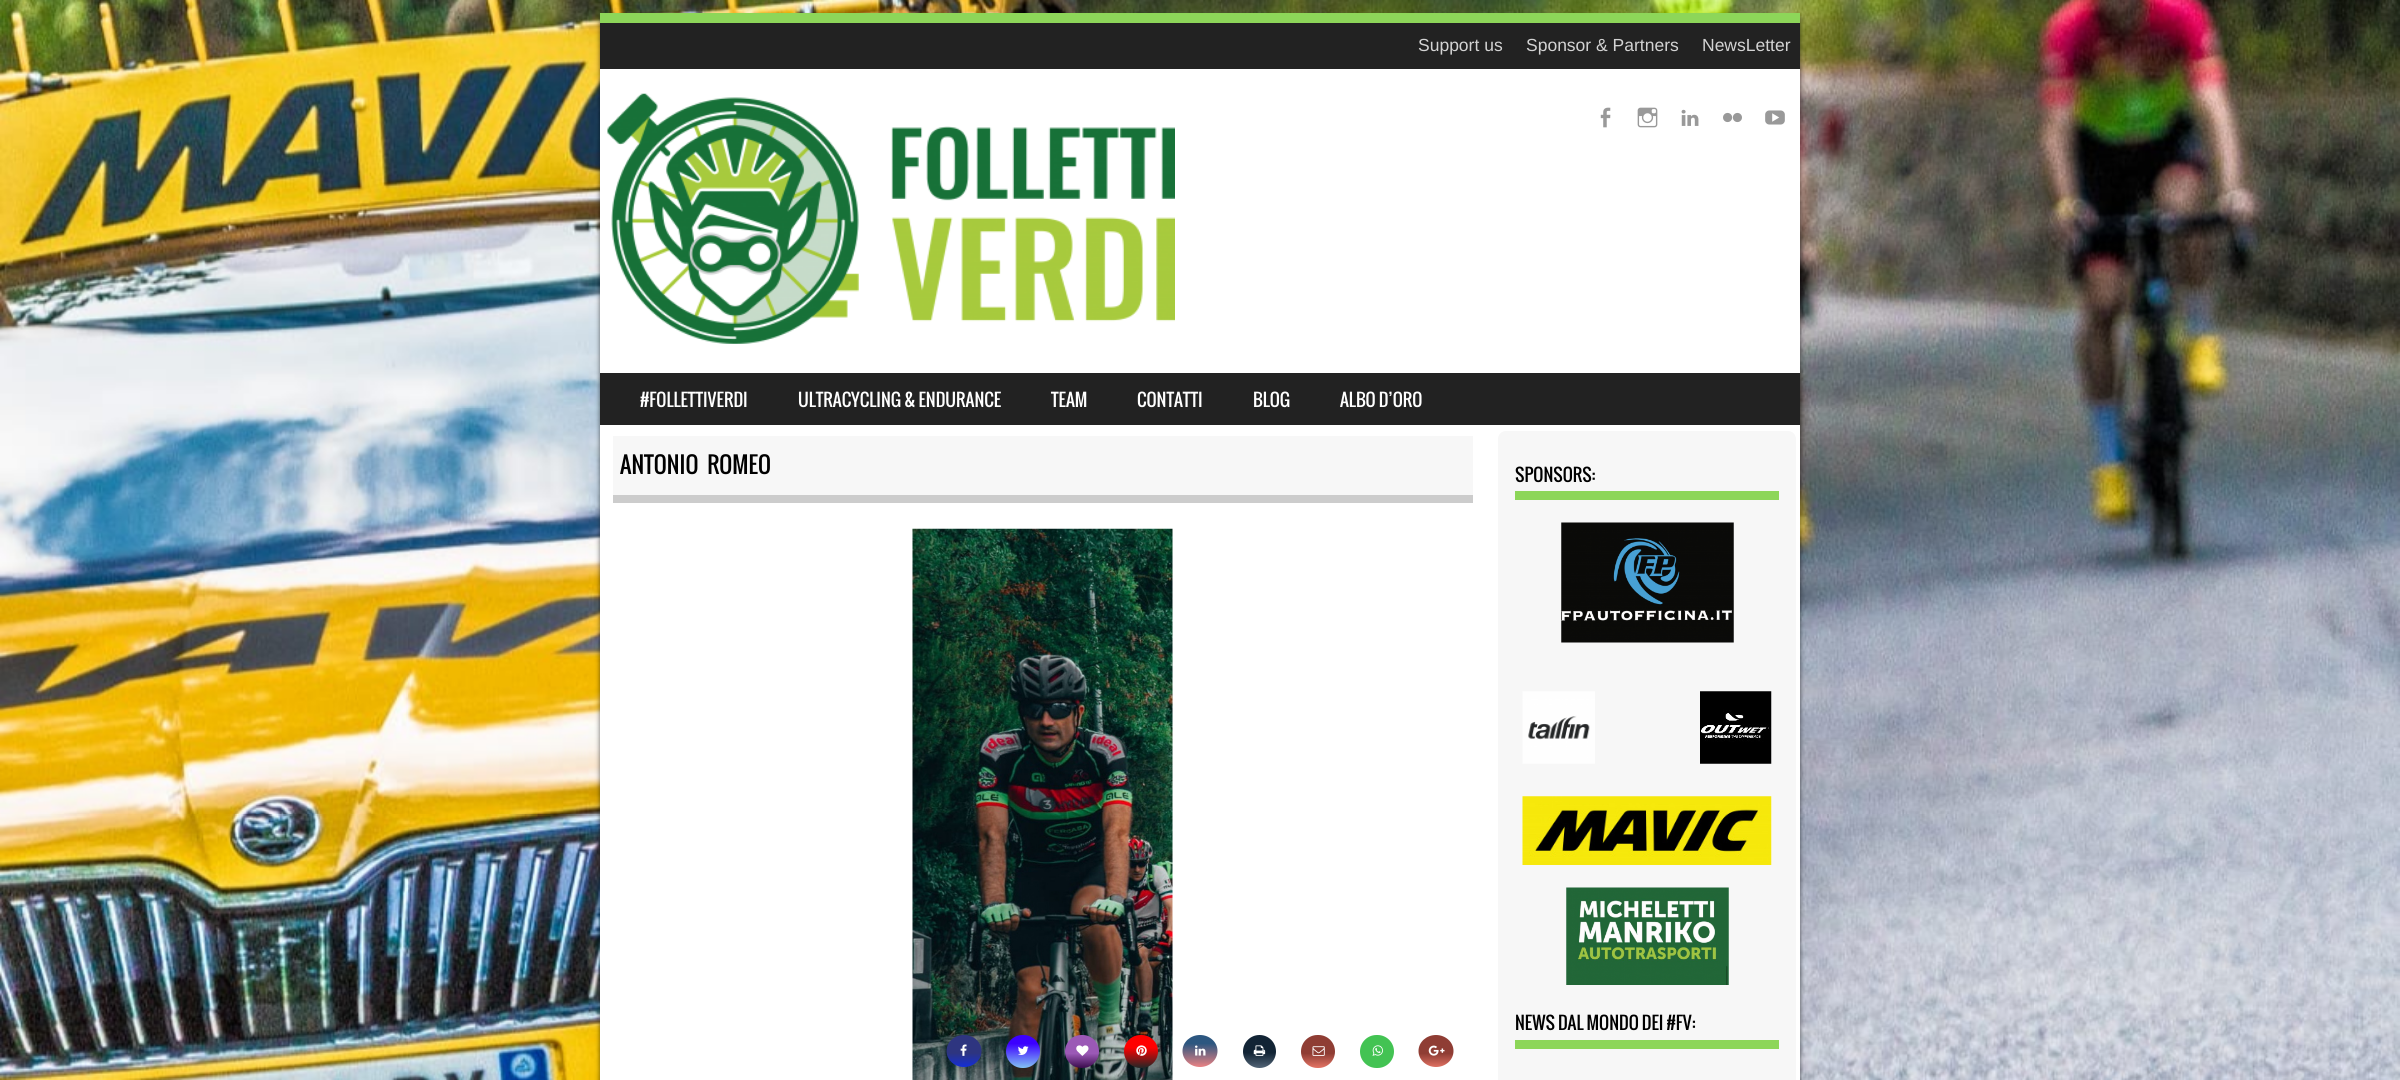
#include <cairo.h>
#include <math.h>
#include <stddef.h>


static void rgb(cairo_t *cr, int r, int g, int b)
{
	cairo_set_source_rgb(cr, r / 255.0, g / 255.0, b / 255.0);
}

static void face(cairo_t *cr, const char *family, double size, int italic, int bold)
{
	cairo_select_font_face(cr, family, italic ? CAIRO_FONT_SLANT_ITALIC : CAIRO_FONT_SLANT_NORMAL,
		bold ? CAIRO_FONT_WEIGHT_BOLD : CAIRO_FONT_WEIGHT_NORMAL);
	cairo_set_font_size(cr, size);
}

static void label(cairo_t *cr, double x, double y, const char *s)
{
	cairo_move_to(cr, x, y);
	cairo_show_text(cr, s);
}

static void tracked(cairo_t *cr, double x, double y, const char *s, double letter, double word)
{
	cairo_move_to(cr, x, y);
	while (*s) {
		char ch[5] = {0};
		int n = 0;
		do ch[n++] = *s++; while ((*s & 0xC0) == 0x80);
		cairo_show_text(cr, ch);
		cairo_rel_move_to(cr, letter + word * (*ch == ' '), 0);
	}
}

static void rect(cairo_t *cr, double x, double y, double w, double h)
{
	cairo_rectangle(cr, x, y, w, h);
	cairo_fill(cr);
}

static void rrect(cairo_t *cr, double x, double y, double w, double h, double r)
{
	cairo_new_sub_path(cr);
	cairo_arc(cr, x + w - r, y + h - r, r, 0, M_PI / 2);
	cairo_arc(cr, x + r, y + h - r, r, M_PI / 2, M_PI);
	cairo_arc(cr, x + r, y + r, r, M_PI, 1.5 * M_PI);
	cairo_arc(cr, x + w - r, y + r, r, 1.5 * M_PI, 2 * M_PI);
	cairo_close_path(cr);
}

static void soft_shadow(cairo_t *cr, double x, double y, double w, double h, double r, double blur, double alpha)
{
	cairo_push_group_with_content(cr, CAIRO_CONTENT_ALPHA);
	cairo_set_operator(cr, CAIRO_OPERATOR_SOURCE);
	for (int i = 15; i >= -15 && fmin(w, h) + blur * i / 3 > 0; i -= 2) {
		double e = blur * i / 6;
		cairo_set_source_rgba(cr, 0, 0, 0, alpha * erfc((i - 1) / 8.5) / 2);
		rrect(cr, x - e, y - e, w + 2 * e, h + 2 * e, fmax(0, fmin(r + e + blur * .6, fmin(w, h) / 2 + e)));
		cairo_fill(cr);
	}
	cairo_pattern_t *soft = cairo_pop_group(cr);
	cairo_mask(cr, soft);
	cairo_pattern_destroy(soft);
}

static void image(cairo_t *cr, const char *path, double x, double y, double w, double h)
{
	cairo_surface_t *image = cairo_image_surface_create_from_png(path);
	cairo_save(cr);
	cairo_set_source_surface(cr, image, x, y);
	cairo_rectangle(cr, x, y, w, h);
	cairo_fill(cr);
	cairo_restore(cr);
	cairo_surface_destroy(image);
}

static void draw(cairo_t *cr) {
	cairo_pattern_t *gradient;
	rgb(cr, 255, 255, 255);
	cairo_paint(cr);
	image(cr, "image0.png", 0, 0, 2400, 1080);
	rgb(cr, 0, 0, 0);
	soft_shadow(cr, 600, 18, 1200, 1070, 0, 2.5, 0.6);
	rgb(cr, 255, 255, 255);
	rect(cr, 600, 69, 1200, 1011);
	rgb(cr, 141, 214, 89);
	rect(cr, 600, 13, 1200, 10);
	rgb(cr, 34, 34, 34);
	rect(cr, 600, 23, 1200, 46);
	face(cr, "Liberation Sans", 17.5, 0, 0);
	rgb(cr, 211, 211, 211);
	label(cr, 1418, 51, "Support us");
	label(cr, 1526, 51, "Sponsor & Partners");
	label(cr, 1702, 51, "NewsLetter");
	image(cr, "image1.png", 607, 93, 568, 251);
	image(cr, "image2.png", 1600, 107, 11, 21);
	image(cr, "image3.png", 1637, 107, 21, 21);
	image(cr, "image4.png", 1681, 109, 18, 17);
	image(cr, "image5.png", 1723, 112, 19, 11);
	image(cr, "image6.png", 1765, 110, 20, 15);
	rgb(cr, 34, 34, 34);
	rect(cr, 600, 373, 1200, 52);
	face(cr, "Oswald", 17.5, 0, 0);
	rgb(cr, 255, 255, 255);
	label(cr, 640, 407, "#FOLLETTIVERDI");
	label(cr, 798, 407, "ULTRACYCLING & ENDURANCE");
	label(cr, 1051, 407, "TEAM");
	label(cr, 1137, 407, "CONTATTI");
	label(cr, 1253, 407, "BLOG");
	label(cr, 1340, 407, "ALBO D’ORO");
	rgb(cr, 247, 247, 247);
	rect(cr, 613, 436, 860, 59);
	rgb(cr, 204, 204, 204);
	rect(cr, 613, 495, 860, 8);
	face(cr, "Oswald", 22.5, 0, 0);
	rgb(cr, 0, 0, 0);
	tracked(cr, 620, 474, "ANTONIO ROMEO", 0, 5);
	image(cr, "image7.png", 912, 528, 261, 552);
	rgb(cr, 247, 247, 247);
	rrect(cr, 1498, 431, 298, 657, 8);
	cairo_fill(cr);
	rgb(cr, 141, 214, 89);
	rect(cr, 1515, 491, 264, 9);
	face(cr, "Oswald", 17.5, 0, 0);
	rgb(cr, 0, 0, 0);
	label(cr, 1515, 482, "SPONSORS:");
	image(cr, "image8.png", 1561, 522, 173, 121);
	image(cr, "image9.png", 1522, 691, 73, 73);
	image(cr, "image10.png", 1700, 691, 72, 73);
	image(cr, "image11.png", 1522, 796, 250, 69);
	image(cr, "image12.png", 1566, 887, 163, 98);
	rgb(cr, 141, 214, 89);
	rect(cr, 1515, 1040, 264, 9);
	rgb(cr, 0, 0, 0);
	label(cr, 1515, 1030, "NEWS DAL MONDO DEI #FV:");
	gradient = cairo_pattern_create_linear(964, 1035, 964, 1068);
	cairo_pattern_add_color_stop_rgba(gradient, 0.55, 0.18, 0.208, 0.502, 1);
	cairo_pattern_add_color_stop_rgba(gradient, 1, 0.067, 0.176, 0.871, 1);
	cairo_set_source(cr, gradient);
	cairo_pattern_destroy(gradient);
	cairo_new_path(cr);
	cairo_move_to(cr, 964, 1035);
	cairo_curve_to(cr, 973.5, 1035, 981.5, 1042, 981.5, 1051);
	cairo_curve_to(cr, 981.5, 1060, 973.5, 1067, 964, 1067);
	cairo_curve_to(cr, 954.5, 1067, 946.5, 1060, 946.5, 1051);
	cairo_curve_to(cr, 946.5, 1042, 954.5, 1035, 964, 1035);
	cairo_close_path(cr);
	cairo_fill(cr);
	image(cr, "image13.png", 960, 1044, 7, 12);
	gradient = cairo_pattern_create_linear(1023, 1035, 1023, 1068);
	cairo_pattern_add_color_stop_rgba(gradient, 0.26, 0.235, 0, 1, 1);
	cairo_pattern_add_color_stop_rgba(gradient, 1, 0.514, 0.761, 0.953, 1);
	cairo_set_source(cr, gradient);
	cairo_pattern_destroy(gradient);
	rrect(cr, 1006, 1035, 34, 33, 16.5);
	cairo_fill(cr);
	image(cr, "image14.png", 1018, 1046, 11, 9);
	gradient = cairo_pattern_create_linear(1082, 1035, 1082, 1068);
	cairo_pattern_add_color_stop_rgba(gradient, 0.56, 0.608, 0.349, 0.714, 1);
	cairo_pattern_add_color_stop_rgba(gradient, 1, 0.227, 0.043, 0.298, 1);
	cairo_set_source(cr, gradient);
	cairo_pattern_destroy(gradient);
	rrect(cr, 1065, 1035, 34, 33, 16.5);
	cairo_fill(cr);
	image(cr, "image15.png", 1076, 1045, 13, 11);
	gradient = cairo_pattern_create_linear(1141, 1035, 1141, 1068);
	cairo_pattern_add_color_stop_rgba(gradient, 0.38, 1, 0, 0, 1);
	cairo_pattern_add_color_stop_rgba(gradient, 0.99, 0.149, 0.149, 0.149, 1);
	cairo_set_source(cr, gradient);
	cairo_pattern_destroy(gradient);
	rrect(cr, 1124, 1035, 34, 33, 16.5);
	cairo_fill(cr);
	image(cr, "image16.png", 1136, 1045, 11, 11);
	gradient = cairo_pattern_create_linear(1200, 1035, 1200, 1068);
	cairo_pattern_add_color_stop_rgba(gradient, 0.26, 0.173, 0.341, 0.502, 1);
	cairo_pattern_add_color_stop_rgba(gradient, 1, 0.949, 0.514, 0.514, 1);
	cairo_set_source(cr, gradient);
	cairo_pattern_destroy(gradient);
	cairo_new_path(cr);
	cairo_move_to(cr, 1200, 1035);
	cairo_curve_to(cr, 1209.5, 1035, 1217.5, 1042, 1217.5, 1051);
	cairo_curve_to(cr, 1217.5, 1060, 1209.5, 1067, 1200, 1067);
	cairo_curve_to(cr, 1190.5, 1067, 1182.5, 1060, 1182.5, 1051);
	cairo_curve_to(cr, 1182.5, 1042, 1190.5, 1035, 1200, 1035);
	cairo_close_path(cr);
	cairo_fill(cr);
	image(cr, "image17.png", 1195, 1045, 11, 11);
	gradient = cairo_pattern_create_linear(1259, 1035, 1259, 1068);
	cairo_pattern_add_color_stop_rgba(gradient, 0.54, 0.071, 0.141, 0.208, 1);
	cairo_pattern_add_color_stop_rgba(gradient, 0.99, 0.318, 0.388, 0.459, 1);
	cairo_set_source(cr, gradient);
	cairo_pattern_destroy(gradient);
	cairo_arc(cr, 1259.5, 1051.5, 16.5, 0, 2 * M_PI);
	cairo_fill(cr);
	image(cr, "image18.png", 1253, 1045, 13, 11);
	gradient = cairo_pattern_create_linear(1318, 1035, 1318, 1068);
	cairo_pattern_add_color_stop_rgba(gradient, 0.56, 0.561, 0.239, 0.204, 1);
	cairo_pattern_add_color_stop_rgba(gradient, 1, 0.894, 0.455, 0.396, 1);
	cairo_set_source(cr, gradient);
	cairo_pattern_destroy(gradient);
	rrect(cr, 1301, 1035, 34, 33, 16.5);
	cairo_fill(cr);
	image(cr, "image19.png", 1312, 1046, 13, 10);
	rgb(cr, 67, 195, 83);
	rrect(cr, 1360, 1035, 34, 33, 16.5);
	cairo_fill(cr);
	image(cr, "image20.png", 1372, 1045, 11, 11);
	gradient = cairo_pattern_create_linear(1436, 1035, 1436, 1068);
	cairo_pattern_add_color_stop_rgba(gradient, 0.56, 0.561, 0.239, 0.204, 1);
	cairo_pattern_add_color_stop_rgba(gradient, 1, 0.894, 0.455, 0.396, 1);
	cairo_set_source(cr, gradient);
	cairo_pattern_destroy(gradient);
	cairo_new_path(cr);
	cairo_move_to(cr, 1436, 1035);
	cairo_curve_to(cr, 1445.5, 1035, 1453.5, 1042, 1453.5, 1051);
	cairo_curve_to(cr, 1453.5, 1060, 1445.5, 1067, 1436, 1067);
	cairo_curve_to(cr, 1426.5, 1067, 1418.5, 1060, 1418.5, 1051);
	cairo_curve_to(cr, 1418.5, 1042, 1426.5, 1035, 1436, 1035);
	cairo_close_path(cr);
	cairo_fill(cr);
	image(cr, "image21.png", 1428, 1045, 17, 11);
}

int main(void) {
	cairo_surface_t *surface = cairo_image_surface_create(CAIRO_FORMAT_RGB24, 2400, 1080);
	cairo_t *cr = cairo_create(surface);
	cairo_font_options_t *options = cairo_font_options_create();
	cairo_font_options_set_hint_metrics(options, CAIRO_HINT_METRICS_OFF);
	cairo_font_options_set_hint_style(options, CAIRO_HINT_STYLE_NONE);
	cairo_set_font_options(cr, options);
	cairo_set_miter_limit(cr, 4);
	draw(cr);
	cairo_surface_write_to_png(surface, "render.png");
	cairo_font_options_destroy(options);
	cairo_destroy(cr);
	cairo_surface_destroy(surface);
	return 0;
}
